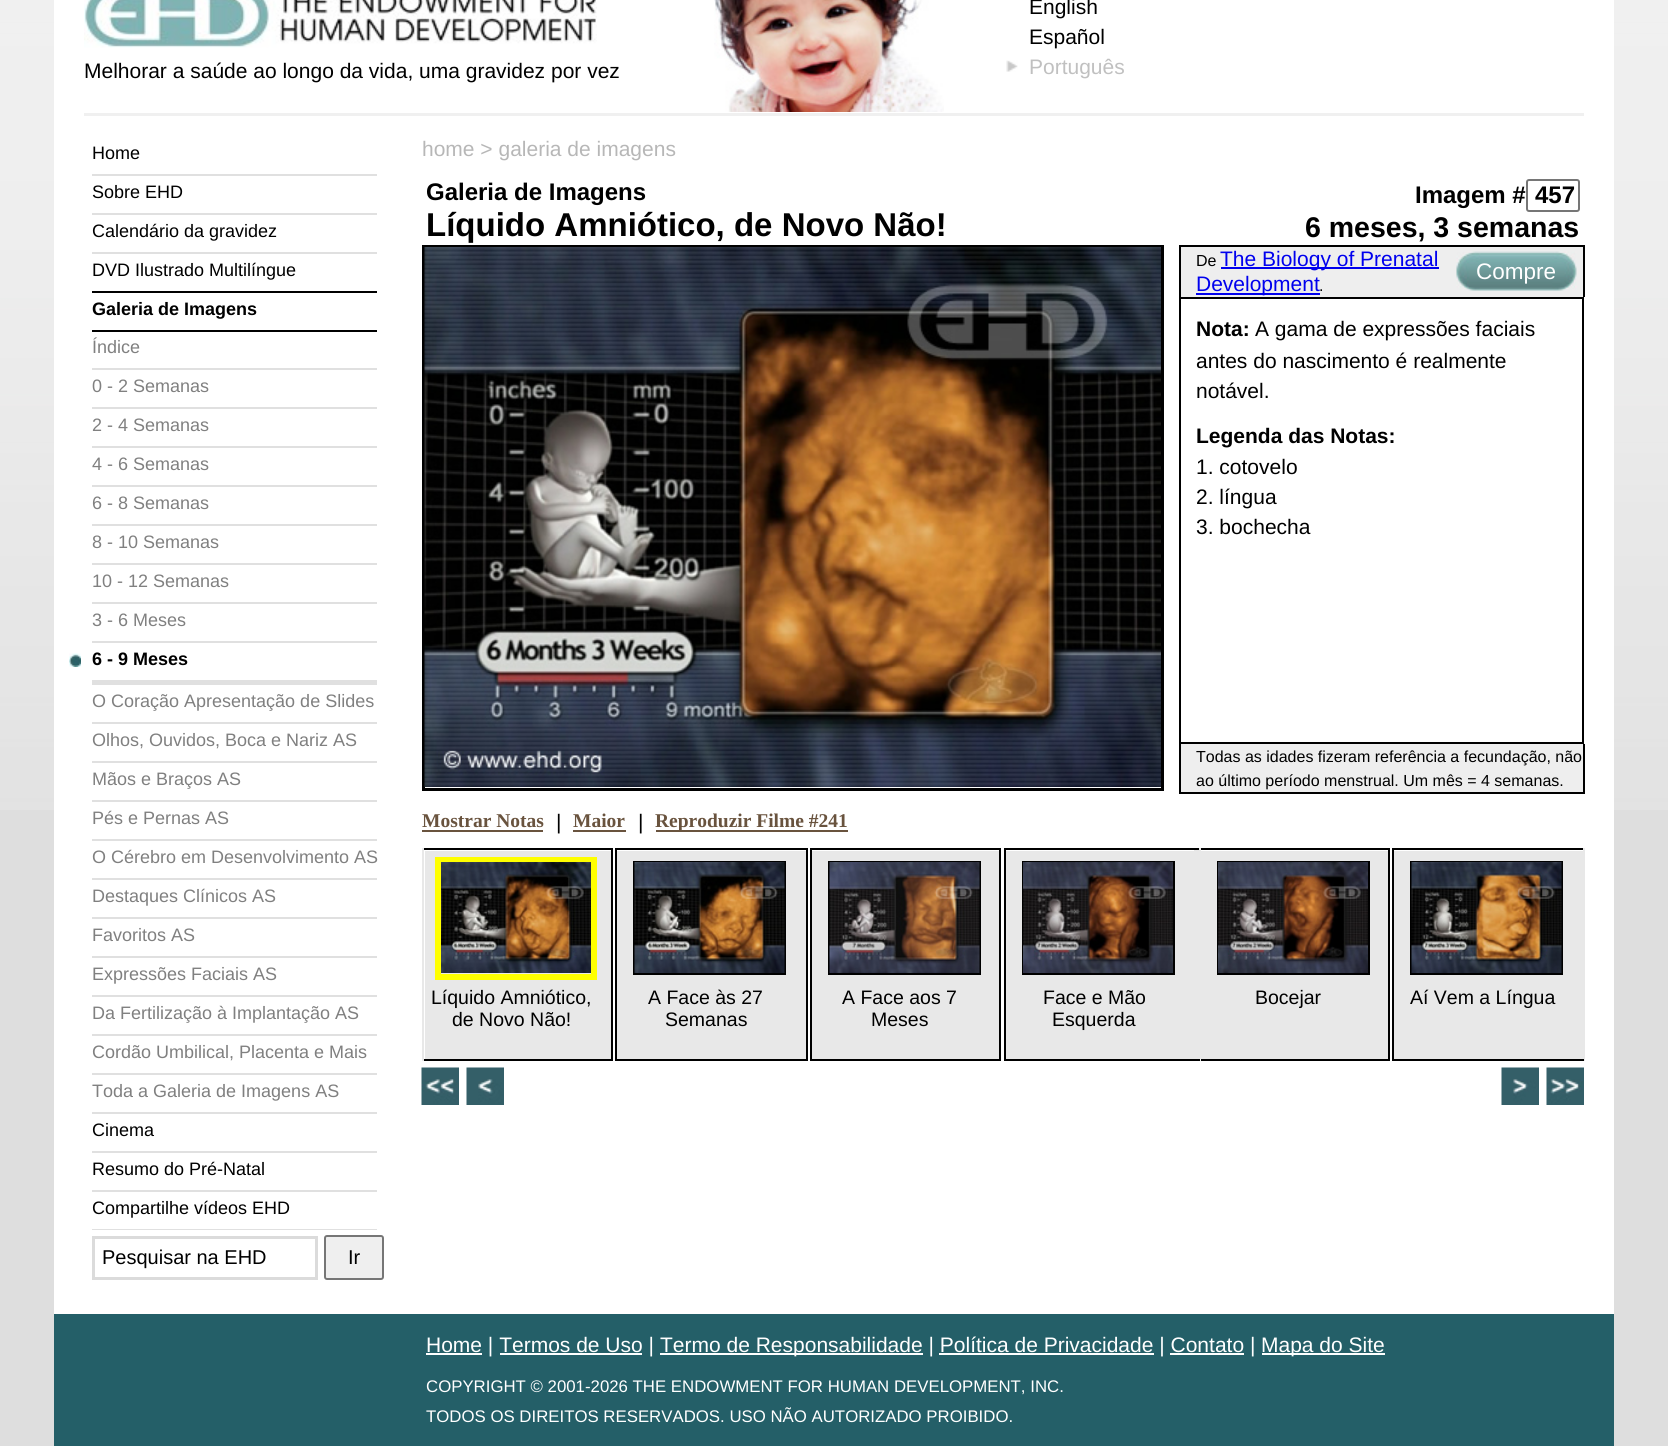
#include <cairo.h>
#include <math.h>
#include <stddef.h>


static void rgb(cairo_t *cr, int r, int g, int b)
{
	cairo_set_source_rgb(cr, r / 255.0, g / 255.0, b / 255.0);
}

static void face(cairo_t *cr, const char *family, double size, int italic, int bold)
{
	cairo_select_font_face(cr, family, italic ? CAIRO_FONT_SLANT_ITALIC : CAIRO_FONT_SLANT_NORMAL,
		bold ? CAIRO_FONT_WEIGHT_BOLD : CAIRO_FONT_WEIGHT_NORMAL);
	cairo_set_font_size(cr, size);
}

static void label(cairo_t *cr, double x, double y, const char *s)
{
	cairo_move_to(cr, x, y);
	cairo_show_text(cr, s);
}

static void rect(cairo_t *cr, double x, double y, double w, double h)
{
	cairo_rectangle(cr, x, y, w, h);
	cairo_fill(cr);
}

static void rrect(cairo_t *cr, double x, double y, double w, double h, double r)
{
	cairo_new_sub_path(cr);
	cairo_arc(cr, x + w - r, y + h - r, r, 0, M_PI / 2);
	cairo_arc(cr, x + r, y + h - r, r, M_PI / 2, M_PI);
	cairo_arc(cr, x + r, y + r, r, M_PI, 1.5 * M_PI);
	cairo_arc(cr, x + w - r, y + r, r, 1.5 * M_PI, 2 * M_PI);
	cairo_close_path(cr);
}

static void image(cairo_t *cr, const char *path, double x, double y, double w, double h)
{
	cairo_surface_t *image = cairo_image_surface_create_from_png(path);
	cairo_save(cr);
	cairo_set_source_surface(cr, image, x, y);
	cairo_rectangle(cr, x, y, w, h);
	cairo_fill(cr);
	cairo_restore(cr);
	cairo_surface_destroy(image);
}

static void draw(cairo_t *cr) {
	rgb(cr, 222, 222, 222);
	cairo_paint(cr);
	image(cr, "image0.png", 0, 0, 1668, 810);
	rgb(cr, 255, 255, 255);
	rect(cr, 54, 0, 1560, 1314);
	image(cr, "image1.png", 84, 0, 513, 48);
	face(cr, "Liberation Sans", 21, 0, 0);
	rgb(cr, 0, 0, 0);
	label(cr, 84, 78, "Melhorar a saúde ao longo da vida, uma gravidez por vez");
	image(cr, "image2.png", 714, 0, 230, 112);
	label(cr, 1029, 14, "English");
	label(cr, 1029, 44, "Español");
	image(cr, "image3.png", 1006, 60, 12, 12);
	rgb(cr, 192, 192, 192);
	label(cr, 1029, 74, "Português");
	rgb(cr, 240, 240, 240);
	rect(cr, 84, 113, 1500, 3);
	rgb(cr, 224, 224, 224);
	rect(cr, 92, 174, 285, 2);
	face(cr, "Liberation Sans", 18, 0, 0);
	rgb(cr, 0, 0, 0);
	label(cr, 92, 159, "Home");
	rgb(cr, 224, 224, 224);
	rect(cr, 92, 213, 285, 2);
	rgb(cr, 0, 0, 0);
	label(cr, 92, 198, "Sobre EHD");
	rgb(cr, 224, 224, 224);
	rect(cr, 92, 252, 285, 2);
	rgb(cr, 0, 0, 0);
	label(cr, 92, 237, "Calendário da gravidez");
	label(cr, 92, 276, "DVD Ilustrado Multilíngue");
	rgb(cr, 224, 224, 224);
	rect(cr, 92, 1112, 285, 2);
	rgb(cr, 0, 0, 0);
	rect(cr, 92, 291, 285, 2);
	rect(cr, 92, 330, 285, 2);
	face(cr, "Liberation Sans", 18, 0, 1);
	label(cr, 92, 315, "Galeria de Imagens");
	rgb(cr, 224, 224, 224);
	rect(cr, 92, 368, 285, 2);
	face(cr, "Liberation Sans", 18, 0, 0);
	rgb(cr, 128, 128, 128);
	label(cr, 92, 353, "Índice");
	rgb(cr, 224, 224, 224);
	rect(cr, 92, 407, 285, 2);
	rgb(cr, 128, 128, 128);
	label(cr, 92, 392, "0 - 2 Semanas");
	rgb(cr, 224, 224, 224);
	rect(cr, 92, 446, 285, 2);
	rgb(cr, 128, 128, 128);
	label(cr, 92, 431, "2 - 4 Semanas");
	rgb(cr, 224, 224, 224);
	rect(cr, 92, 485, 285, 2);
	rgb(cr, 128, 128, 128);
	label(cr, 92, 470, "4 - 6 Semanas");
	rgb(cr, 224, 224, 224);
	rect(cr, 92, 524, 285, 2);
	rgb(cr, 128, 128, 128);
	label(cr, 92, 509, "6 - 8 Semanas");
	rgb(cr, 224, 224, 224);
	rect(cr, 92, 563, 285, 2);
	rgb(cr, 128, 128, 128);
	label(cr, 92, 548, "8 - 10 Semanas");
	rgb(cr, 224, 224, 224);
	rect(cr, 92, 602, 285, 2);
	rgb(cr, 128, 128, 128);
	label(cr, 92, 587, "10 - 12 Semanas");
	rgb(cr, 224, 224, 224);
	rect(cr, 92, 641, 285, 2);
	rgb(cr, 128, 128, 128);
	label(cr, 92, 626, "3 - 6 Meses");
	image(cr, "image4.png", 69, 653, 12, 14);
	face(cr, "Liberation Sans", 18, 0, 1);
	rgb(cr, 0, 0, 0);
	label(cr, 92, 665, "6 - 9 Meses");
	rgb(cr, 224, 224, 224);
	rect(cr, 92, 722, 285, 2);
	rect(cr, 92, 680, 285, 5);
	face(cr, "Liberation Sans", 18, 0, 0);
	rgb(cr, 128, 128, 128);
	label(cr, 92, 707, "O Coração Apresentação de Slides");
	rgb(cr, 224, 224, 224);
	rect(cr, 92, 761, 285, 2);
	rgb(cr, 128, 128, 128);
	label(cr, 92, 746, "Olhos, Ouvidos, Boca e Nariz AS");
	rgb(cr, 224, 224, 224);
	rect(cr, 92, 800, 285, 2);
	rgb(cr, 128, 128, 128);
	label(cr, 92, 785, "Mãos e Braços AS");
	rgb(cr, 224, 224, 224);
	rect(cr, 92, 839, 285, 2);
	rgb(cr, 128, 128, 128);
	label(cr, 92, 824, "Pés e Pernas AS");
	rgb(cr, 224, 224, 224);
	rect(cr, 92, 878, 285, 2);
	rgb(cr, 128, 128, 128);
	label(cr, 92, 863, "O Cérebro em Desenvolvimento AS");
	rgb(cr, 224, 224, 224);
	rect(cr, 92, 917, 285, 2);
	rgb(cr, 128, 128, 128);
	label(cr, 92, 902, "Destaques Clínicos AS");
	rgb(cr, 224, 224, 224);
	rect(cr, 92, 956, 285, 2);
	rgb(cr, 128, 128, 128);
	label(cr, 92, 941, "Favoritos AS");
	rgb(cr, 224, 224, 224);
	rect(cr, 92, 995, 285, 2);
	rgb(cr, 128, 128, 128);
	label(cr, 92, 980, "Expressões Faciais AS");
	rgb(cr, 224, 224, 224);
	rect(cr, 92, 1034, 285, 2);
	rgb(cr, 128, 128, 128);
	label(cr, 92, 1019, "Da Fertilização à Implantação AS");
	rgb(cr, 224, 224, 224);
	rect(cr, 92, 1073, 285, 2);
	rgb(cr, 128, 128, 128);
	label(cr, 92, 1058, "Cordão Umbilical, Placenta e Mais");
	label(cr, 92, 1097, "Toda a Galeria de Imagens AS");
	rgb(cr, 224, 224, 224);
	rect(cr, 92, 1151, 285, 2);
	rgb(cr, 0, 0, 0);
	label(cr, 92, 1136, "Cinema");
	rgb(cr, 224, 224, 224);
	rect(cr, 92, 1190, 285, 2);
	rgb(cr, 0, 0, 0);
	label(cr, 92, 1175, "Resumo do Pré-Natal");
	rgb(cr, 224, 224, 224);
	rect(cr, 92, 1229, 285, 1);
	rgb(cr, 0, 0, 0);
	label(cr, 92, 1214, "Compartilhe vídeos EHD");
	cairo_rectangle(cr, 93.5, 1237.5, 223, 41);
	rgb(cr, 219, 219, 219);
	cairo_set_line_width(cr, 3);
	cairo_stroke(cr);
	face(cr, "Liberation Sans", 20, 0, 0);
	rgb(cr, 0, 0, 0);
	label(cr, 102, 1264, "Pesquisar na EHD");
	rgb(cr, 239, 239, 239);
	rrect(cr, 325, 1236, 58, 43, 2);
	cairo_fill_preserve(cr);
	rgb(cr, 118, 118, 118);
	cairo_set_line_width(cr, 2);
	cairo_stroke(cr);
	rgb(cr, 0, 0, 0);
	label(cr, 348, 1264, "Ir");
	face(cr, "Liberation Sans", 21, 0, 0);
	rgb(cr, 183, 183, 183);
	label(cr, 422, 156, "home > galeria de imagens");
	face(cr, "Liberation Sans", 24, 0, 1);
	rgb(cr, 0, 0, 0);
	label(cr, 426, 200, "Galeria de Imagens");
	face(cr, "Liberation Sans", 33, 0, 1);
	label(cr, 426, 236, "Líquido Amniótico, de Novo Não!");
	face(cr, "Liberation Sans", 24, 0, 1);
	label(cr, 1415, 203, "Imagem #");
	rrect(cr, 1527, 180, 52, 31, 2);
	rgb(cr, 118, 118, 118);
	cairo_stroke(cr);
	rgb(cr, 0, 0, 0);
	label(cr, 1535, 203, "457");
	face(cr, "Liberation Sans", 28.5, 0, 1);
	label(cr, 1305, 237, "6 meses, 3 semanas");
	cairo_rectangle(cr, 423.5, 246.5, 739, 543);
	cairo_set_line_width(cr, 3);
	cairo_stroke(cr);
	image(cr, "image5.png", 424, 247, 737, 540);
	rgb(cr, 238, 238, 238);
	rect(cr, 1181, 247, 402, 50);
	rgb(cr, 0, 0, 0);
	rect(cr, 1179, 245, 405, 2);
	rect(cr, 1583, 245, 2, 52);
	rect(cr, 1179, 245, 2, 52);
	face(cr, "Liberation Sans", 16, 0, 0);
	label(cr, 1196, 266, "De");
	rgb(cr, 0, 0, 238);
	rect(cr, 1221, 267, 218, 2);
	face(cr, "Liberation Sans", 21, 0, 0);
	label(cr, 1220, 266, "The Biology of Prenatal");
	rect(cr, 1196, 293, 124, 2);
	label(cr, 1196, 291, "Development");
	face(cr, "Liberation Sans", 16, 0, 0);
	rgb(cr, 0, 0, 0);
	label(cr, 1319, 291, ".");
	image(cr, "image6.png", 1456, 251, 121, 40);
	face(cr, "Liberation Sans", 22.5, 0, 0);
	rgb(cr, 255, 255, 255);
	label(cr, 1476, 279, "Compre");
	cairo_rectangle(cr, 1180, 298, 403, 445);
	rgb(cr, 0, 0, 0);
	cairo_set_line_width(cr, 2);
	cairo_stroke(cr);
	face(cr, "Liberation Sans", 21, 0, 1);
	label(cr, 1196, 336, "Nota:");
	face(cr, "Liberation Sans", 21, 0, 0);
	label(cr, 1255, 336, "A gama de expressões faciais");
	label(cr, 1196, 368, "antes do nascimento é realmente");
	label(cr, 1196, 398, "notável.");
	face(cr, "Liberation Sans", 21, 0, 1);
	label(cr, 1196, 443, "Legenda das Notas:");
	face(cr, "Liberation Sans", 21, 0, 0);
	label(cr, 1196, 474, "1. cotovelo");
	label(cr, 1196, 504, "2. língua");
	label(cr, 1196, 534, "3. bochecha");
	rgb(cr, 238, 238, 238);
	rect(cr, 1181, 744, 402, 48);
	rgb(cr, 0, 0, 0);
	rect(cr, 1583, 744, 2, 50);
	rect(cr, 1179, 792, 405, 2);
	rect(cr, 1179, 744, 2, 50);
	face(cr, "Liberation Sans", 16, 0, 0);
	label(cr, 1196, 762, "Todas as idades fizeram referência a fecundação, não");
	label(cr, 1196, 786, "ao último período menstrual. Um mês = 4 semanas.");
	face(cr, "Liberation Serif", 19.5, 0, 1);
	rgb(cr, 105, 83, 62);
	label(cr, 422, 827, "Mostrar Notas");
	rect(cr, 422, 830, 121, 2);
	face(cr, "Liberation Sans", 21, 0, 0);
	rgb(cr, 0, 0, 0);
	label(cr, 556, 829, "|");
	face(cr, "Liberation Serif", 19.5, 0, 1);
	rgb(cr, 105, 83, 62);
	label(cr, 573, 827, "Maior");
	rect(cr, 573, 830, 53, 2);
	face(cr, "Liberation Sans", 21, 0, 0);
	rgb(cr, 0, 0, 0);
	label(cr, 638, 829, "|");
	rgb(cr, 105, 83, 62);
	rect(cr, 656, 830, 192, 2);
	face(cr, "Liberation Serif", 19.5, 0, 1);
	label(cr, 655, 827, "Reproduzir Filme #241");
	rgb(cr, 232, 232, 232);
	rect(cr, 425, 851, 186, 208);
	rgb(cr, 0, 0, 0);
	rect(cr, 611, 848, 2, 213);
	rect(cr, 422, 848, 190, 2);
	rect(cr, 422, 1059, 190, 2);
	rgb(cr, 232, 232, 232);
	rect(cr, 422, 848, 2, 213);
	cairo_rectangle(cr, 438, 860, 156, 117);
	rgb(cr, 255, 255, 0);
	cairo_set_line_width(cr, 6);
	cairo_stroke(cr);
	image(cr, "image7.png", 441, 862, 150, 111);
	face(cr, "Liberation Sans", 19.5, 0, 0);
	rgb(cr, 0, 0, 0);
	label(cr, 431, 1004, "Líquido Amniótico,");
	label(cr, 452, 1026, "de Novo Não!");
	rect(cr, 806, 848, 2, 213);
	rect(cr, 615, 848, 192, 2);
	rect(cr, 615, 1059, 192, 2);
	rect(cr, 615, 848, 2, 213);
	rgb(cr, 232, 232, 232);
	rect(cr, 617, 851, 189, 208);
	cairo_rectangle(cr, 634, 862, 151, 112);
	rgb(cr, 0, 0, 0);
	cairo_set_line_width(cr, 2);
	cairo_stroke(cr);
	image(cr, "image8.png", 634, 862, 151, 111);
	label(cr, 648, 1004, "A Face às 27");
	label(cr, 665, 1026, "Semanas");
	rect(cr, 999, 848, 2, 213);
	rect(cr, 810, 848, 191, 2);
	rect(cr, 810, 1059, 191, 2);
	rect(cr, 810, 848, 2, 213);
	rgb(cr, 232, 232, 232);
	rect(cr, 812, 851, 187, 208);
	cairo_rectangle(cr, 829, 862, 151, 112);
	rgb(cr, 0, 0, 0);
	cairo_stroke(cr);
	image(cr, "image9.png", 829, 862, 151, 111);
	label(cr, 842, 1004, "A Face aos 7");
	label(cr, 871, 1026, "Meses");
	rgb(cr, 232, 232, 232);
	rect(cr, 1196, 849, 3, 212);
	rgb(cr, 0, 0, 0);
	rect(cr, 1388, 848, 2, 213);
	rect(cr, 1194, 848, 195, 2);
	rect(cr, 1199, 1059, 190, 2);
	rgb(cr, 232, 232, 232);
	rect(cr, 1199, 848, 2, 213);
	rgb(cr, 0, 0, 0);
	rect(cr, 1194, 1059, 6, 2);
	rgb(cr, 232, 232, 232);
	rect(cr, 1194, 848, 2, 213);
	rgb(cr, 0, 0, 0);
	rect(cr, 1004, 848, 192, 2);
	rect(cr, 1004, 1059, 192, 2);
	rect(cr, 1004, 848, 2, 213);
	rgb(cr, 232, 232, 232);
	rect(cr, 1006, 851, 188, 208);
	cairo_rectangle(cr, 1023, 862, 151, 112);
	rgb(cr, 0, 0, 0);
	cairo_stroke(cr);
	image(cr, "image10.png", 1023, 862, 150, 111);
	label(cr, 1043, 1004, "Face e Mão");
	label(cr, 1052, 1026, "Esquerda");
	rgb(cr, 232, 232, 232);
	rect(cr, 1201, 851, 187, 208);
	cairo_rectangle(cr, 1218, 862, 151, 112);
	rgb(cr, 0, 0, 0);
	cairo_stroke(cr);
	image(cr, "image11.png", 1218, 862, 150, 111);
	label(cr, 1255, 1004, "Bocejar");
	rect(cr, 1392, 848, 192, 2);
	rgb(cr, 232, 232, 232);
	rect(cr, 1583, 848, 2, 213);
	rgb(cr, 0, 0, 0);
	rect(cr, 1392, 1059, 192, 2);
	rect(cr, 1392, 848, 2, 213);
	rgb(cr, 232, 232, 232);
	rect(cr, 1394, 851, 189, 208);
	cairo_rectangle(cr, 1411, 862, 151, 112);
	rgb(cr, 0, 0, 0);
	cairo_stroke(cr);
	image(cr, "image12.png", 1411, 862, 151, 111);
	label(cr, 1410, 1004, "Aí Vem a Língua");
	image(cr, "image13.png", 421, 1067, 38, 38);
	image(cr, "image14.png", 466, 1067, 38, 38);
	image(cr, "image15.png", 1501, 1067, 38, 38);
	image(cr, "image16.png", 1546, 1067, 38, 38);
	rgb(cr, 36, 95, 104);
	rect(cr, 54, 1314, 1560, 132);
	rgb(cr, 255, 255, 255);
	rect(cr, 426, 1353, 56, 2);
	face(cr, "Liberation Sans", 21, 0, 0);
	label(cr, 426, 1352, "Home | Termos de Uso |");
	rect(cr, 660, 1353, 263, 2);
	label(cr, 660, 1352, "Termo de Responsabilidade | Política de Privacidade | Contato |");
	rect(cr, 1262, 1353, 123, 2);
	label(cr, 1261, 1352, "Mapa do Site");
	rect(cr, 500, 1353, 142, 2);
	rect(cr, 939, 1353, 215, 2);
	rect(cr, 1170, 1353, 74, 2);
	face(cr, "Liberation Sans", 16.8, 0, 0);
	label(cr, 426, 1392, "COPYRIGHT © 2001-2026 THE ENDOWMENT FOR HUMAN DEVELOPMENT, INC.");
	label(cr, 426, 1422, "TODOS OS DIREITOS RESERVADOS. USO NÃO AUTORIZADO PROIBIDO.");
}

int main(void) {
	cairo_surface_t *surface = cairo_image_surface_create(CAIRO_FORMAT_RGB24, 1668, 1446);
	cairo_t *cr = cairo_create(surface);
	cairo_font_options_t *options = cairo_font_options_create();
	cairo_font_options_set_hint_metrics(options, CAIRO_HINT_METRICS_OFF);
	cairo_font_options_set_hint_style(options, CAIRO_HINT_STYLE_NONE);
	cairo_set_font_options(cr, options);
	cairo_set_miter_limit(cr, 4);
	draw(cr);
	cairo_surface_write_to_png(surface, "render.png");
	cairo_font_options_destroy(options);
	cairo_destroy(cr);
	cairo_surface_destroy(surface);
	return 0;
}
